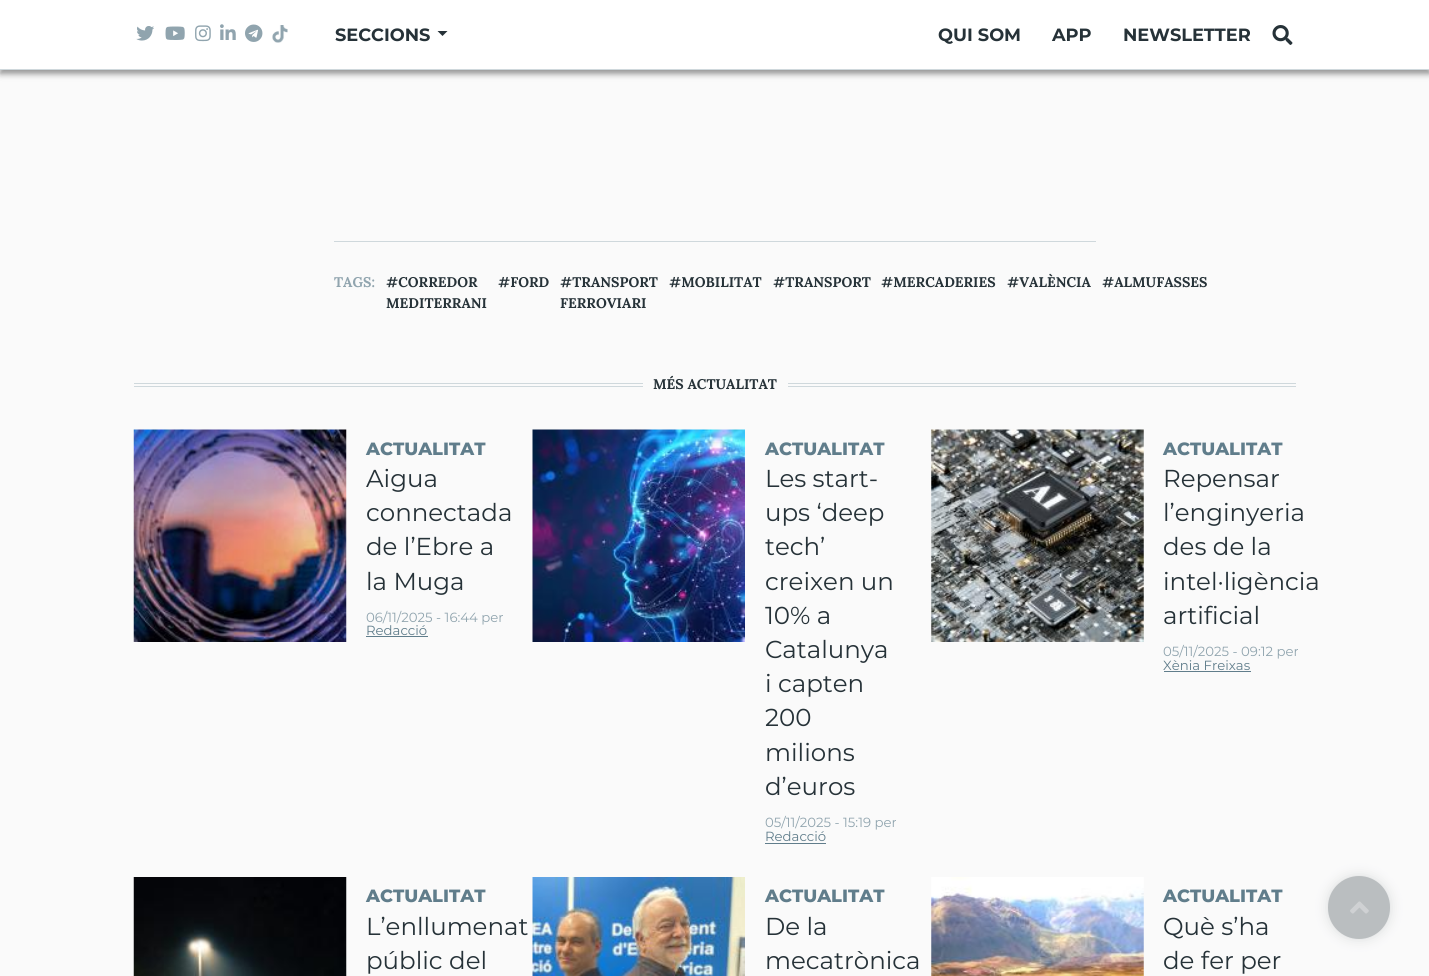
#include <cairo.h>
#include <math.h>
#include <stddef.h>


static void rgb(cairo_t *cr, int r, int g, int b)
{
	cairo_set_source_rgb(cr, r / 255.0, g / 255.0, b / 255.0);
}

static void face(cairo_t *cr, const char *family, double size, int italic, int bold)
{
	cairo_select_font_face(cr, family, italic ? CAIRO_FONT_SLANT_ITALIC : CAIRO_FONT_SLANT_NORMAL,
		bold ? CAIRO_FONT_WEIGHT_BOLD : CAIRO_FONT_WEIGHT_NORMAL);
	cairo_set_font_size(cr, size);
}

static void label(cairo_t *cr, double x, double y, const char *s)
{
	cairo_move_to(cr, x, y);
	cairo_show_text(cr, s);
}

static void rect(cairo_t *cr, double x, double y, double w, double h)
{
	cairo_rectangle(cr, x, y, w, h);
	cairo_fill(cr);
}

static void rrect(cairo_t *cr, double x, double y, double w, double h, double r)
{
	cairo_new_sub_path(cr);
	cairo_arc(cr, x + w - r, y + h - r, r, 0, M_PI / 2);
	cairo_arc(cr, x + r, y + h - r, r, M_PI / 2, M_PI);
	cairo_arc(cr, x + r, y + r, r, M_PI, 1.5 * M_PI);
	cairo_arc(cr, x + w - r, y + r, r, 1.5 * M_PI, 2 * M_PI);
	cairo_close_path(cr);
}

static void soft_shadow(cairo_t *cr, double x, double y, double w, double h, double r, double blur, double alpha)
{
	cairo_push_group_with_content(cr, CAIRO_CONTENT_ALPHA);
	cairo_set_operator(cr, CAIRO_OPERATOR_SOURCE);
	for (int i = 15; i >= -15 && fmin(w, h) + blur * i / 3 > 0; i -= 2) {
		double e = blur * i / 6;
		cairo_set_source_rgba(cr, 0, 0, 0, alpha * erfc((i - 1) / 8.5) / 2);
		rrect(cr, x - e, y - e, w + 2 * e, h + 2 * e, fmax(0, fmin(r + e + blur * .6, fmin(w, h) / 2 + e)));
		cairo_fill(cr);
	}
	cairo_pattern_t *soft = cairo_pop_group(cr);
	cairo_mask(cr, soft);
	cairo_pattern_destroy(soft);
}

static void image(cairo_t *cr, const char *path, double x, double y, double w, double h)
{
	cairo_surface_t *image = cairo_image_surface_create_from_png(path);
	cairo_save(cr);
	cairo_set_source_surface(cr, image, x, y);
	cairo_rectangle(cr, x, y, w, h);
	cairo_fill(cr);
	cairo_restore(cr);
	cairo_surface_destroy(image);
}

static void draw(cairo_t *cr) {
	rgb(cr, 250, 250, 250);
	cairo_paint(cr);
	rgb(cr, 0, 0, 0);
	soft_shadow(cr, 0, 4, 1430, 70, 0, 3, 0.4);
	rgb(cr, 255, 255, 255);
	rect(cr, 0, 0, 1429, 69);
	rgb(cr, 207, 216, 220);
	rect(cr, 0, 69, 1429, 1);
	image(cr, "image0.png", 136, 26, 18, 15);
	image(cr, "image1.png", 165, 26, 20, 14);
	image(cr, "image2.png", 195, 25, 16, 17);
	image(cr, "image3.png", 220, 24, 16, 16);
	image(cr, "image4.png", 245, 24, 18, 18);
	image(cr, "image5.png", 272, 25, 16, 18);
	face(cr, "Montserrat", 17.75, 0, 1);
	rgb(cr, 38, 50, 56);
	label(cr, 335, 41, "SECCIONS");
	cairo_new_path(cr);
	cairo_move_to(cr, 437.5, 31);
	cairo_line_to(cr, 447.5, 31);
	cairo_line_to(cr, 442.5, 36);
	cairo_close_path(cr);
	cairo_fill(cr);
	label(cr, 938, 41, "QUI SOM");
	label(cr, 1052, 41, "APP");
	label(cr, 1123, 41, "NEWSLETTER");
	image(cr, "image6.png", 1272, 25, 21, 20);
	rgb(cr, 207, 216, 220);
	rect(cr, 334, 241, 762, 1);
	face(cr, "Lora", 14, 0, 1);
	rgb(cr, 144, 164, 174);
	label(cr, 334, 287, "TAGS:");
	rgb(cr, 38, 50, 56);
	label(cr, 386, 287, "#CORREDOR");
	label(cr, 386, 308, "MEDITERRANI");
	label(cr, 498, 287, "#FORD");
	label(cr, 560, 287, "#TRANSPORT");
	label(cr, 560, 308, "FERROVIARI");
	label(cr, 669, 287, "#MOBILITAT");
	label(cr, 773, 287, "#TRANSPORT");
	label(cr, 881, 287, "#MERCADERIES");
	label(cr, 1007, 287, "#VALÈNCIA");
	label(cr, 1102, 287, "#ALMUFASSES");
	rgb(cr, 207, 216, 220);
	rect(cr, 134, 383, 1162, 1);
	rect(cr, 134, 386, 1162, 1);
	rgb(cr, 250, 250, 250);
	rect(cr, 643, 383, 145, 4);
	rgb(cr, 38, 50, 56);
	label(cr, 653, 389, "MÉS ACTUALITAT");
	image(cr, "image7.png", 133, 429, 214, 213);
	face(cr, "Montserrat ExtraBold", 17.75, 0, 0);
	rgb(cr, 96, 125, 139);
	label(cr, 366, 455, "ACTUALITAT");
	face(cr, "Montserrat", 24.5, 0, 0);
	rgb(cr, 38, 50, 56);
	label(cr, 366, 487, "Aigua");
	label(cr, 366, 521, "connectada");
	label(cr, 366, 555, "de l’Ebre a");
	label(cr, 366, 590, "la Muga");
	face(cr, "Montserrat", 13.25, 0, 0);
	rgb(cr, 144, 164, 174);
	label(cr, 366, 622, "06/11/2025 - 16:44 per");
	rgb(cr, 96, 125, 139);
	label(cr, 366, 635, "Redacció");
	rect(cr, 366, 636, 62, 1);
	image(cr, "image8.png", 532, 429, 213, 213);
	face(cr, "Montserrat ExtraBold", 17.75, 0, 0);
	label(cr, 765, 455, "ACTUALITAT");
	face(cr, "Montserrat", 24.5, 0, 0);
	rgb(cr, 38, 50, 56);
	label(cr, 765, 487, "Les start-");
	label(cr, 765, 521, "ups ‘deep");
	label(cr, 765, 555, "tech’");
	label(cr, 765, 590, "creixen un");
	label(cr, 765, 624, "10% a");
	label(cr, 765, 658, "Catalunya");
	label(cr, 765, 692, "i capten");
	label(cr, 765, 726, "200");
	label(cr, 765, 761, "milions");
	label(cr, 765, 795, "d’euros");
	face(cr, "Montserrat", 13.25, 0, 0);
	rgb(cr, 144, 164, 174);
	label(cr, 765, 827, "05/11/2025 - 15:19 per");
	rgb(cr, 96, 125, 139);
	label(cr, 765, 841, "Redacció");
	rect(cr, 765, 843, 61, 1);
	image(cr, "image9.png", 931, 429, 213, 213);
	face(cr, "Montserrat ExtraBold", 17.75, 0, 0);
	label(cr, 1163, 455, "ACTUALITAT");
	face(cr, "Montserrat", 24.5, 0, 0);
	rgb(cr, 38, 50, 56);
	label(cr, 1163, 487, "Repensar");
	label(cr, 1163, 521, "l’enginyeria");
	label(cr, 1163, 555, "des de la");
	label(cr, 1163, 590, "intel·ligència");
	label(cr, 1163, 624, "artificial");
	face(cr, "Montserrat", 13.25, 0, 0);
	rgb(cr, 144, 164, 174);
	label(cr, 1163, 656, "05/11/2025 - 09:12 per");
	rgb(cr, 96, 125, 139);
	label(cr, 1163, 670, "Xènia Freixas");
	rect(cr, 1164, 671, 87, 1);
	image(cr, "image10.png", 133, 877, 214, 99);
	face(cr, "Montserrat ExtraBold", 17.75, 0, 0);
	label(cr, 366, 902, "ACTUALITAT");
	face(cr, "Montserrat", 24.5, 0, 0);
	rgb(cr, 38, 50, 56);
	label(cr, 366, 935, "L’enllumenat");
	label(cr, 366, 969, "públic del");
	image(cr, "image11.png", 532, 877, 213, 99);
	face(cr, "Montserrat ExtraBold", 17.75, 0, 0);
	rgb(cr, 96, 125, 139);
	label(cr, 765, 902, "ACTUALITAT");
	face(cr, "Montserrat", 24.5, 0, 0);
	rgb(cr, 38, 50, 56);
	label(cr, 765, 935, "De la");
	label(cr, 765, 969, "mecatrònica");
	image(cr, "image12.png", 931, 877, 213, 99);
	face(cr, "Montserrat ExtraBold", 17.75, 0, 0);
	rgb(cr, 96, 125, 139);
	label(cr, 1163, 902, "ACTUALITAT");
	face(cr, "Montserrat", 24.5, 0, 0);
	rgb(cr, 38, 50, 56);
	label(cr, 1163, 935, "Què s’ha");
	label(cr, 1163, 969, "de fer per");
	rgb(cr, 186, 190, 192);
	soft_shadow(cr, 1328, 876, 62, 63, 31, 6, 0.5);
	rgb(cr, 186, 190, 192);
	rrect(cr, 1328, 876, 62, 63, 31);
	cairo_fill(cr);
	image(cr, "image13.png", 1350, 901, 19, 13);
}

int main(void) {
	cairo_surface_t *surface = cairo_image_surface_create(CAIRO_FORMAT_RGB24, 1429, 976);
	cairo_t *cr = cairo_create(surface);
	cairo_font_options_t *options = cairo_font_options_create();
	cairo_font_options_set_hint_metrics(options, CAIRO_HINT_METRICS_OFF);
	cairo_font_options_set_hint_style(options, CAIRO_HINT_STYLE_NONE);
	cairo_set_font_options(cr, options);
	cairo_set_miter_limit(cr, 4);
	draw(cr);
	cairo_surface_write_to_png(surface, "render.png");
	cairo_font_options_destroy(options);
	cairo_destroy(cr);
	cairo_surface_destroy(surface);
	return 0;
}
